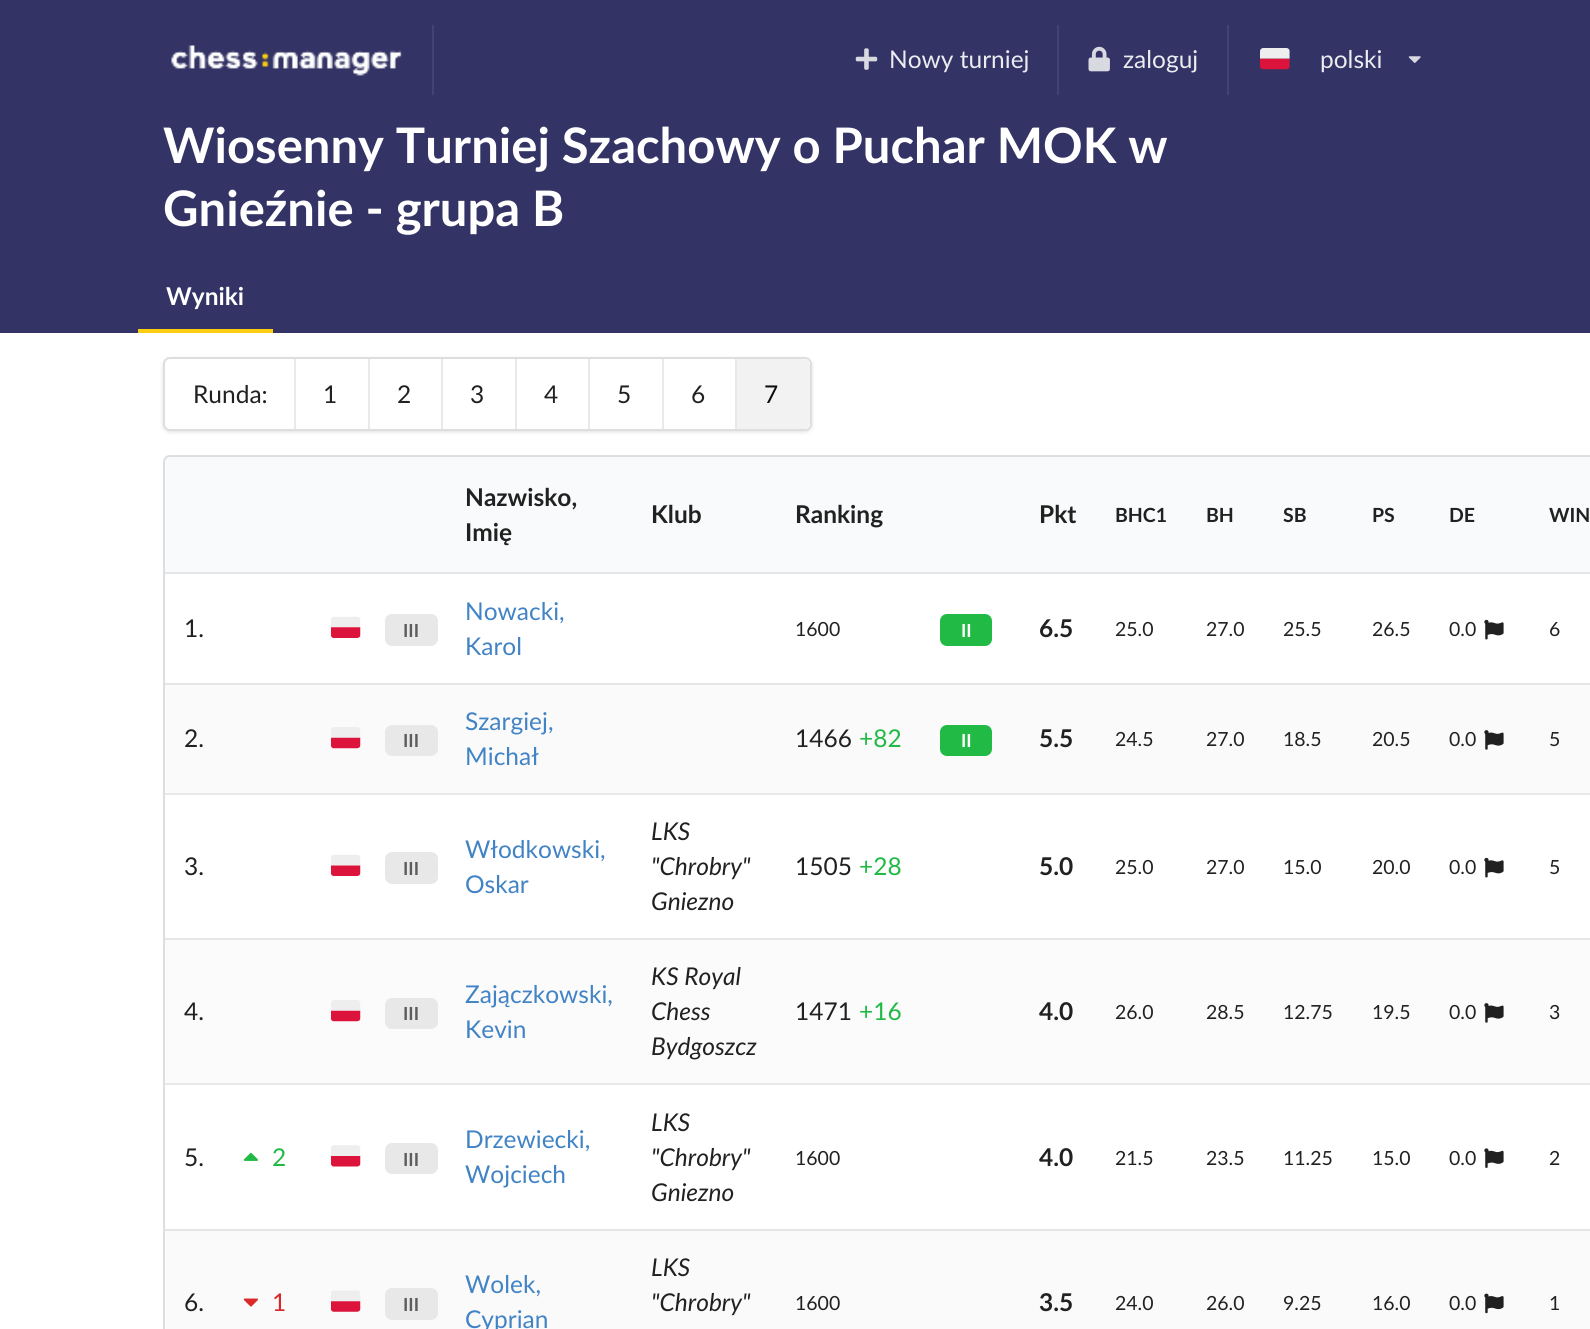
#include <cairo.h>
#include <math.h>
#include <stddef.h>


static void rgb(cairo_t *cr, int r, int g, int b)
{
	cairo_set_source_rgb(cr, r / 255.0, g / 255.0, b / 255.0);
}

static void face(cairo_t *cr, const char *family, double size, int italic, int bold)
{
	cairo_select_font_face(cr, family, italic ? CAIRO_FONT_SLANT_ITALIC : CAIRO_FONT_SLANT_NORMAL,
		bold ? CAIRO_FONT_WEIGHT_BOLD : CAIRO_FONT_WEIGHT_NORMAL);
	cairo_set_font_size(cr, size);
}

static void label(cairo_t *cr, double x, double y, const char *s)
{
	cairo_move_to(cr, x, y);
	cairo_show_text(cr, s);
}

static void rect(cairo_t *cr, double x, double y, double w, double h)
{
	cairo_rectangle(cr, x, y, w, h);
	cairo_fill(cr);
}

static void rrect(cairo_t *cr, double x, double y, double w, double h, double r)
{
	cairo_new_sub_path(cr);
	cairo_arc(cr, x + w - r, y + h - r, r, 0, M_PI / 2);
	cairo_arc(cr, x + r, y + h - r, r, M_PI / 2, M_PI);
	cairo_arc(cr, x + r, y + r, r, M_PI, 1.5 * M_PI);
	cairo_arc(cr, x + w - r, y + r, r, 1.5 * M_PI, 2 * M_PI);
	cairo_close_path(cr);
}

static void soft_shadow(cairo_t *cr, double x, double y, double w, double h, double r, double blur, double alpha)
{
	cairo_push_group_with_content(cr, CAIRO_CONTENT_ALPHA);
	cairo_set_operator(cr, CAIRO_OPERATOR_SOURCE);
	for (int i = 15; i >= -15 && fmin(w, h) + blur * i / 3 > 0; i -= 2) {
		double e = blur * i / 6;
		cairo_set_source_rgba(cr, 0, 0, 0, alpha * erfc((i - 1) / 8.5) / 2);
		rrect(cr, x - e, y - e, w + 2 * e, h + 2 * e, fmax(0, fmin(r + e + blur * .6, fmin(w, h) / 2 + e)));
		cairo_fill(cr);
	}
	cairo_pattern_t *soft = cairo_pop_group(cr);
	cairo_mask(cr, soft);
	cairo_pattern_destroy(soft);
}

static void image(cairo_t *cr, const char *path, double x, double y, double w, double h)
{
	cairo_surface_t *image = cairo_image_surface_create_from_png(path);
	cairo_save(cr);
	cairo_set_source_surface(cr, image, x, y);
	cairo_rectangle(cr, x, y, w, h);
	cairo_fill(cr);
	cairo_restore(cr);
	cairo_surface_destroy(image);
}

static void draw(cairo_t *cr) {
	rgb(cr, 255, 255, 255);
	cairo_paint(cr);
	rgb(cr, 51, 51, 101);
	rect(cr, 0, 0, 1590, 333);
	image(cr, "image0.png", 171, 45, 231, 31);
	rgb(cr, 67, 67, 113);
	rect(cr, 432, 25, 2, 70);
	image(cr, "image1.png", 855, 48, 23, 22);
	face(cr, "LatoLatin", 24.5, 0, 0);
	rgb(cr, 235, 235, 240);
	label(cr, 889, 68, "Nowy turniej");
	rgb(cr, 67, 67, 113);
	rect(cr, 1057, 25, 2, 70);
	image(cr, "image2.png", 1088, 46, 22, 26);
	rgb(cr, 235, 235, 240);
	label(cr, 1123, 68, "zaloguj");
	rgb(cr, 67, 67, 113);
	rect(cr, 1227, 25, 2, 70);
	image(cr, "image3.png", 1260, 48, 30, 22);
	rgb(cr, 235, 235, 240);
	label(cr, 1320, 68, "polski");
	image(cr, "image4.png", 1408, 56, 13, 7);
	face(cr, "LatoLatin", 49, 0, 1);
	rgb(cr, 255, 255, 255);
	label(cr, 163, 163, "Wiosenny Turniej Szachowy o Puchar MOK w");
	label(cr, 163, 226, "Gnieźnie - grupa B");
	rgb(cr, 252, 206, 17);
	rect(cr, 138, 329, 135, 4);
	face(cr, "LatoLatin", 24.5, 0, 1);
	rgb(cr, 255, 255, 255);
	label(cr, 166, 305, "Wyniki");
	rgb(cr, 34, 36, 38);
	soft_shadow(cr, 163, 359, 649, 73, 7, 2, 0.15);
	rgb(cr, 255, 255, 255);
	rrect(cr, 163, 357, 649, 74, 7);
	cairo_fill(cr);
	rrect(cr, 164, 358, 647, 72, 6);
	cairo_set_source_rgba(cr, 0.133, 0.141, 0.149, 0.15);
	cairo_stroke(cr);
	face(cr, "LatoLatin", 24.5, 0, 0);
	rgb(cr, 33, 33, 33);
	label(cr, 193, 403, "Runda:");
	rgb(cr, 233, 233, 233);
	rect(cr, 294, 359, 2, 70);
	rgb(cr, 33, 33, 33);
	label(cr, 323, 403, "1");
	rgb(cr, 233, 233, 233);
	rect(cr, 368, 359, 2, 70);
	rgb(cr, 33, 33, 33);
	label(cr, 397, 403, "2");
	rgb(cr, 233, 233, 233);
	rect(cr, 441, 359, 2, 70);
	rgb(cr, 33, 33, 33);
	label(cr, 470, 403, "3");
	rgb(cr, 233, 233, 233);
	rect(cr, 515, 359, 2, 70);
	rgb(cr, 33, 33, 33);
	label(cr, 544, 403, "4");
	rgb(cr, 233, 233, 233);
	rect(cr, 588, 359, 2, 70);
	rgb(cr, 33, 33, 33);
	label(cr, 617, 403, "5");
	rgb(cr, 233, 233, 233);
	rect(cr, 662, 359, 2, 70);
	rgb(cr, 33, 33, 33);
	label(cr, 691, 403, "6");
	rgb(cr, 233, 233, 233);
	rect(cr, 735, 359, 2, 70);
	rgb(cr, 242, 242, 242);
	cairo_new_path(cr);
	cairo_move_to(cr, 737, 359);
	cairo_line_to(cr, 803, 359);
	cairo_curve_to(cr, 807, 359, 810, 362, 810, 366);
	cairo_line_to(cr, 810, 422);
	cairo_curve_to(cr, 810, 426, 807, 429, 803, 429);
	cairo_line_to(cr, 737, 429);
	cairo_close_path(cr);
	cairo_fill(cr);
	rgb(cr, 12, 12, 12);
	label(cr, 764, 403, "7");
	rrect(cr, 164, 456, 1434, 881, 6);
	rgb(cr, 222, 222, 222);
	cairo_stroke(cr);
	rgb(cr, 249, 250, 251);
	cairo_new_path(cr);
	cairo_move_to(cr, 172, 457);
	cairo_line_to(cr, 238, 457);
	cairo_line_to(cr, 238, 574);
	cairo_line_to(cr, 165, 574);
	cairo_line_to(cr, 165, 464);
	cairo_curve_to(cr, 165, 460, 168, 457, 172, 457);
	cairo_close_path(cr);
	cairo_fill(cr);
	rgb(cr, 227, 229, 230);
	rect(cr, 165, 572, 1425, 2);
	rgb(cr, 249, 250, 251);
	rect(cr, 238, 457, 1352, 115);
	face(cr, "LatoLatin", 24.5, 0, 1);
	rgb(cr, 33, 33, 33);
	label(cr, 465, 506, "Nazwisko,");
	label(cr, 465, 541, "Imię");
	label(cr, 651, 523, "Klub");
	label(cr, 795, 523, "Ranking");
	label(cr, 1039, 523, "Pkt");
	face(cr, "LatoLatin", 19.5, 0, 1);
	label(cr, 1115, 522, "BHC1");
	label(cr, 1206, 522, "BH");
	label(cr, 1283, 522, "SB");
	label(cr, 1372, 522, "PS");
	label(cr, 1449, 522, "DE");
	label(cr, 1549, 522, "WIN");
	face(cr, "LatoLatin", 24.5, 0, 0);
	label(cr, 184, 637, "1.");
	image(cr, "image5.png", 331, 616, 30, 22);
	rgb(cr, 232, 232, 232);
	rrect(cr, 385, 614, 53, 32, 7);
	cairo_fill(cr);
	face(cr, "LatoLatin", 18, 0, 1);
	rgb(cr, 93, 93, 93);
	label(cr, 403, 637, "III");
	face(cr, "LatoLatin", 24.5, 0, 0);
	rgb(cr, 65, 131, 196);
	label(cr, 465, 620, "Nowacki,");
	label(cr, 465, 655, "Karol");
	face(cr, "LatoLatin", 19.5, 0, 0);
	rgb(cr, 33, 33, 33);
	label(cr, 795, 636, "1600");
	rgb(cr, 33, 186, 69);
	rrect(cr, 940, 614, 52, 32, 7);
	cairo_fill(cr);
	face(cr, "LatoLatin", 18, 0, 1);
	rgb(cr, 255, 255, 255);
	label(cr, 961, 637, "II");
	face(cr, "LatoLatin", 24.5, 0, 1);
	rgb(cr, 33, 33, 33);
	label(cr, 1039, 637, "6.5");
	face(cr, "LatoLatin", 19.5, 0, 0);
	label(cr, 1115, 636, "25.0");
	label(cr, 1206, 636, "27.0");
	label(cr, 1283, 636, "25.5");
	label(cr, 1372, 636, "26.5");
	label(cr, 1449, 636, "0.0");
	image(cr, "image6.png", 1484, 619, 20, 21);
	label(cr, 1549, 636, "6");
	rgb(cr, 250, 250, 251);
	rect(cr, 165, 685, 1425, 108);
	rgb(cr, 228, 229, 230);
	rect(cr, 165, 683, 1425, 2);
	face(cr, "LatoLatin", 24.5, 0, 0);
	rgb(cr, 33, 33, 33);
	label(cr, 184, 747, "2.");
	image(cr, "image7.png", 331, 727, 30, 22);
	rgb(cr, 232, 232, 232);
	rrect(cr, 385, 725, 53, 31, 7);
	cairo_fill(cr);
	face(cr, "LatoLatin", 18, 0, 1);
	rgb(cr, 93, 93, 93);
	label(cr, 403, 747, "III");
	face(cr, "LatoLatin", 24.5, 0, 0);
	rgb(cr, 65, 131, 196);
	label(cr, 465, 730, "Szargiej,");
	label(cr, 465, 765, "Michał");
	rgb(cr, 33, 33, 33);
	label(cr, 795, 747, "1466");
	rgb(cr, 33, 186, 69);
	label(cr, 859, 747, "+82");
	rrect(cr, 940, 725, 52, 31, 7);
	cairo_fill(cr);
	face(cr, "LatoLatin", 18, 0, 1);
	rgb(cr, 255, 255, 255);
	label(cr, 961, 747, "II");
	face(cr, "LatoLatin", 24.5, 0, 1);
	rgb(cr, 33, 33, 33);
	label(cr, 1039, 747, "5.5");
	face(cr, "LatoLatin", 19.5, 0, 0);
	label(cr, 1115, 746, "24.5");
	label(cr, 1206, 746, "27.0");
	label(cr, 1283, 746, "18.5");
	label(cr, 1372, 746, "20.5");
	label(cr, 1449, 746, "0.0");
	image(cr, "image8.png", 1484, 730, 20, 20);
	label(cr, 1549, 746, "5");
	rgb(cr, 233, 233, 233);
	rect(cr, 165, 793, 1425, 2);
	face(cr, "LatoLatin", 24.5, 0, 0);
	rgb(cr, 33, 33, 33);
	label(cr, 184, 875, "3.");
	image(cr, "image9.png", 331, 854, 30, 22);
	rgb(cr, 232, 232, 232);
	rrect(cr, 385, 852, 53, 32, 7);
	cairo_fill(cr);
	face(cr, "LatoLatin", 18, 0, 1);
	rgb(cr, 93, 93, 93);
	label(cr, 403, 875, "III");
	face(cr, "LatoLatin", 24.5, 0, 0);
	rgb(cr, 65, 131, 196);
	label(cr, 465, 858, "Włodkowski,");
	label(cr, 465, 893, "Oskar");
	face(cr, "LatoLatin", 24.5, 1, 0);
	rgb(cr, 33, 33, 33);
	label(cr, 651, 840, "LKS");
	label(cr, 651, 875, "\"Chrobry\"");
	label(cr, 651, 910, "Gniezno");
	face(cr, "LatoLatin", 24.5, 0, 0);
	label(cr, 795, 875, "1505");
	rgb(cr, 33, 186, 69);
	label(cr, 859, 875, "+28");
	face(cr, "LatoLatin", 24.5, 0, 1);
	rgb(cr, 33, 33, 33);
	label(cr, 1039, 875, "5.0");
	face(cr, "LatoLatin", 19.5, 0, 0);
	label(cr, 1115, 874, "25.0");
	label(cr, 1206, 874, "27.0");
	label(cr, 1283, 874, "15.0");
	label(cr, 1372, 874, "20.0");
	label(cr, 1449, 874, "0.0");
	image(cr, "image6.png", 1484, 857, 20, 21);
	label(cr, 1549, 874, "5");
	rgb(cr, 251, 251, 252);
	rect(cr, 165, 940, 1425, 143);
	rgb(cr, 229, 230, 231);
	rect(cr, 165, 938, 1425, 2);
	face(cr, "LatoLatin", 24.5, 0, 0);
	rgb(cr, 33, 33, 33);
	label(cr, 184, 1020, "4.");
	image(cr, "image10.png", 331, 1000, 30, 22);
	rgb(cr, 232, 232, 232);
	rrect(cr, 385, 998, 53, 31, 7);
	cairo_fill(cr);
	face(cr, "LatoLatin", 18, 0, 1);
	rgb(cr, 93, 93, 93);
	label(cr, 403, 1020, "III");
	face(cr, "LatoLatin", 24.5, 0, 0);
	rgb(cr, 65, 131, 196);
	label(cr, 465, 1003, "Zajączkowski,");
	label(cr, 465, 1038, "Kevin");
	face(cr, "LatoLatin", 24.5, 1, 0);
	rgb(cr, 33, 33, 33);
	label(cr, 651, 985, "KS Royal");
	label(cr, 651, 1020, "Chess");
	label(cr, 651, 1055, "Bydgoszcz");
	face(cr, "LatoLatin", 24.5, 0, 0);
	label(cr, 795, 1020, "1471");
	rgb(cr, 33, 186, 69);
	label(cr, 859, 1020, "+16");
	face(cr, "LatoLatin", 24.5, 0, 1);
	rgb(cr, 33, 33, 33);
	label(cr, 1039, 1020, "4.0");
	face(cr, "LatoLatin", 19.5, 0, 0);
	label(cr, 1115, 1019, "26.0");
	label(cr, 1206, 1019, "28.5");
	label(cr, 1283, 1019, "12.75");
	label(cr, 1372, 1019, "19.5");
	label(cr, 1449, 1019, "0.0");
	image(cr, "image11.png", 1484, 1003, 20, 20);
	label(cr, 1549, 1019, "3");
	rgb(cr, 233, 233, 233);
	rect(cr, 165, 1083, 1425, 2);
	face(cr, "LatoLatin", 24.5, 0, 0);
	rgb(cr, 33, 33, 33);
	label(cr, 184, 1166, "5.");
	image(cr, "image12.png", 243, 1152, 15, 9);
	rgb(cr, 33, 186, 69);
	label(cr, 272, 1166, "2");
	image(cr, "image13.png", 331, 1145, 30, 22);
	rgb(cr, 232, 232, 232);
	rrect(cr, 385, 1143, 53, 31, 7);
	cairo_fill(cr);
	face(cr, "LatoLatin", 18, 0, 1);
	rgb(cr, 93, 93, 93);
	label(cr, 403, 1166, "III");
	face(cr, "LatoLatin", 24.5, 0, 0);
	rgb(cr, 65, 131, 196);
	label(cr, 465, 1148, "Drzewiecki,");
	label(cr, 465, 1183, "Wojciech");
	face(cr, "LatoLatin", 24.5, 1, 0);
	rgb(cr, 33, 33, 33);
	label(cr, 651, 1131, "LKS");
	label(cr, 651, 1166, "\"Chrobry\"");
	label(cr, 651, 1201, "Gniezno");
	face(cr, "LatoLatin", 19.5, 0, 0);
	label(cr, 795, 1165, "1600");
	face(cr, "LatoLatin", 24.5, 0, 1);
	label(cr, 1039, 1166, "4.0");
	face(cr, "LatoLatin", 19.5, 0, 0);
	label(cr, 1115, 1165, "21.5");
	label(cr, 1206, 1165, "23.5");
	label(cr, 1283, 1165, "11.25");
	label(cr, 1372, 1165, "15.0");
	label(cr, 1449, 1165, "0.0");
	image(cr, "image14.png", 1484, 1148, 20, 20);
	label(cr, 1549, 1165, "2");
	rgb(cr, 250, 250, 251);
	rect(cr, 165, 1231, 1425, 98);
	rgb(cr, 228, 229, 230);
	rect(cr, 165, 1229, 1425, 2);
	face(cr, "LatoLatin", 24.5, 0, 0);
	rgb(cr, 33, 33, 33);
	label(cr, 184, 1311, "6.");
	image(cr, "image15.png", 243, 1298, 15, 9);
	rgb(cr, 219, 40, 40);
	label(cr, 272, 1311, "1");
	image(cr, "image16.png", 331, 1290, 30, 22);
	rgb(cr, 232, 232, 232);
	rrect(cr, 385, 1288, 53, 32, 7);
	cairo_fill(cr);
	face(cr, "LatoLatin", 18, 0, 1);
	rgb(cr, 93, 93, 93);
	label(cr, 403, 1311, "III");
	face(cr, "LatoLatin", 24.5, 0, 0);
	rgb(cr, 65, 131, 196);
	label(cr, 465, 1293, "Wolek,");
	label(cr, 465, 1328, "Cyprian");
	face(cr, "LatoLatin", 24.5, 1, 0);
	rgb(cr, 33, 33, 33);
	label(cr, 651, 1276, "LKS");
	label(cr, 651, 1311, "\"Chrobry\"");
	face(cr, "LatoLatin", 19.5, 0, 0);
	label(cr, 795, 1310, "1600");
	face(cr, "LatoLatin", 24.5, 0, 1);
	label(cr, 1039, 1311, "3.5");
	face(cr, "LatoLatin", 19.5, 0, 0);
	label(cr, 1115, 1310, "24.0");
	label(cr, 1206, 1310, "26.0");
	label(cr, 1283, 1310, "9.25");
	label(cr, 1372, 1310, "16.0");
	label(cr, 1449, 1310, "0.0");
	image(cr, "image17.png", 1484, 1293, 20, 21);
	label(cr, 1549, 1310, "1");
}

int main(void) {
	cairo_surface_t *surface = cairo_image_surface_create(CAIRO_FORMAT_RGB24, 1590, 1329);
	cairo_t *cr = cairo_create(surface);
	cairo_font_options_t *options = cairo_font_options_create();
	cairo_font_options_set_hint_metrics(options, CAIRO_HINT_METRICS_OFF);
	cairo_font_options_set_hint_style(options, CAIRO_HINT_STYLE_NONE);
	cairo_set_font_options(cr, options);
	cairo_set_miter_limit(cr, 4);
	draw(cr);
	cairo_surface_write_to_png(surface, "render.png");
	cairo_font_options_destroy(options);
	cairo_destroy(cr);
	cairo_surface_destroy(surface);
	return 0;
}
